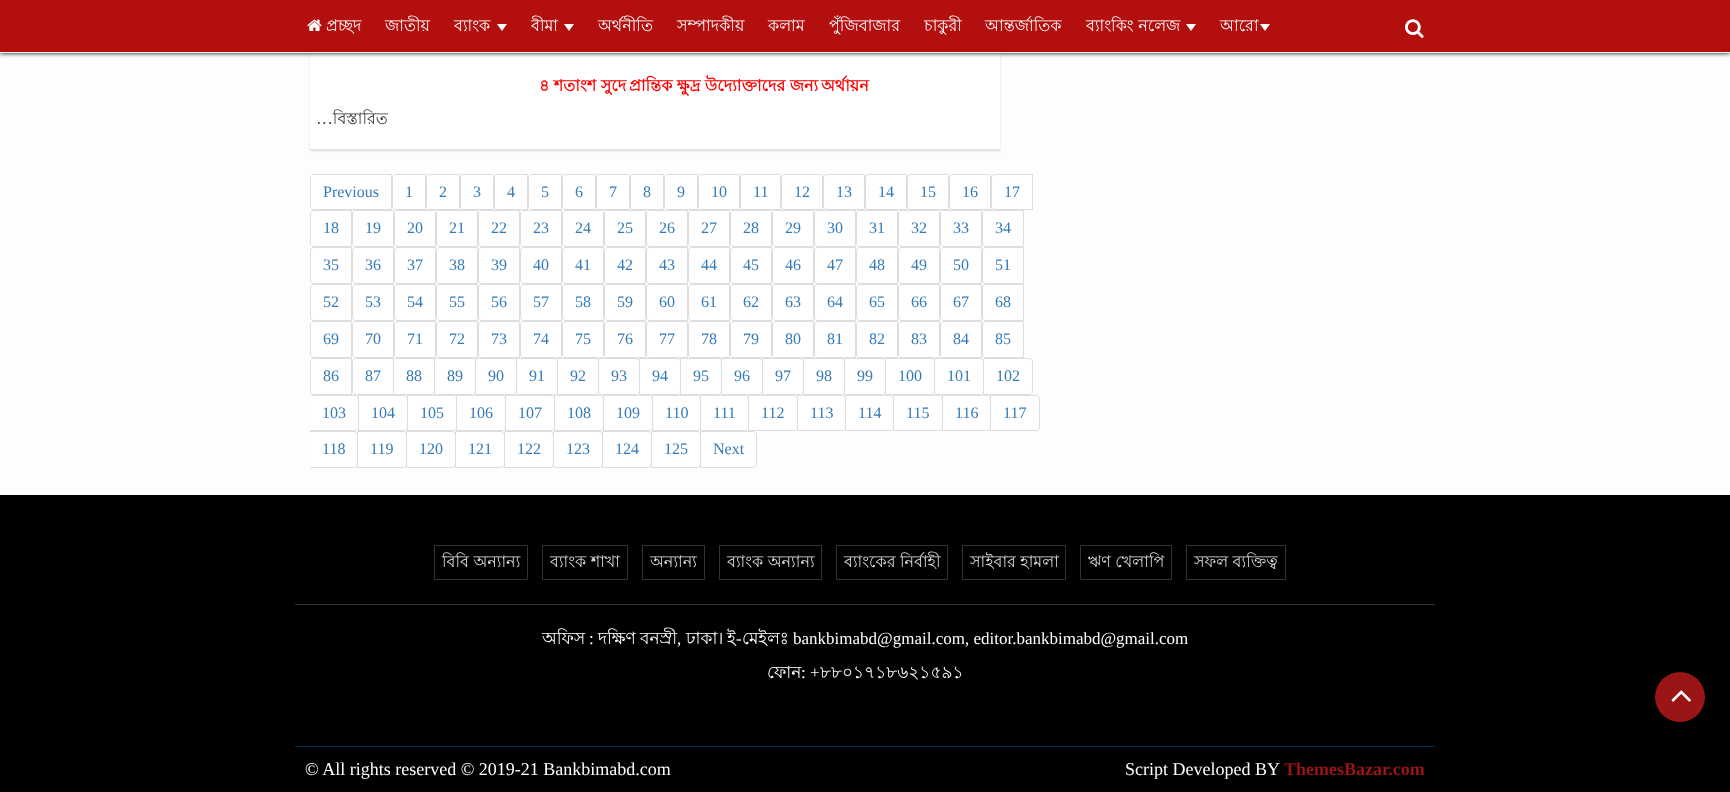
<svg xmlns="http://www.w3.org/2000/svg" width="1730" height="792">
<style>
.a{font:16px Lohit Bengali;fill:#fff}
.b{font:bold 16px Lohit Bengali;fill:#f00}
.c{font:16px Lohit Bengali;fill:#333}
.d{font:16px Liberation Serif;fill:#337ab7}
.e{font:16px Lohit Bengali;fill:#ddd}
.f{font:17px Lohit Bengali;fill:#fff}
.g{font:17px Liberation Serif;fill:#fff}
.h{font:18px Liberation Serif;fill:#fff}
.i{font:bold 18px Liberation Serif;fill:#9a1515}
</style>
<defs>
<clipPath id="clip1"><path d="M310 154h750v341H310z"/></clipPath>
</defs>
<rect width="100%" height="100%" fill="#fcfdfd"/>
<path fill="#ddd" filter="blur(1px)" d="M310 7h690v144H310z"/>
<path fill="#fff" d="M310 53h690v96H310z"/>
<path fill="#000" filter="blur(2.5px)" d="M0 0h1730v53H0z"/>
<path fill="#b30f0f" d="M0 0h1730v52H0z"/>
<path fill="#eee" d="M0 52h1730v1H0z"/>
<image href="1.png" x="307" y="19" width="15" height="12"/>
<path fill="#fff" d="M497 24h10l-5 7z"/>
<path fill="#fff" d="M564 24h10l-5 7z"/>
<path fill="#fff" d="M1186 24h10l-5 7z"/>
<path fill="#fff" d="M1260 24h10l-5 7z"/>
<image href="2.png" x="1405" y="19" width="19" height="19"/>
<path fill="#fff" stroke="#ddd" d="M314 174.5h77.5v35h-77.5c-2 0-3.5-1.5-3.5-3.5v-28c0-2 1.5-3.5 3.5-3.5z"/>
<path fill="#fff" stroke="#ddd" d="M396 174.5h29.5v35h-29.5c-2 0-3.5-1.5-3.5-3.5v-28c0-2 1.5-3.5 3.5-3.5z"/>
<path fill="#fff" stroke="#ddd" d="M430 174.5h29.5v35h-29.5c-2 0-3.5-1.5-3.5-3.5v-28c0-2 1.5-3.5 3.5-3.5z"/>
<path fill="#fff" stroke="#ddd" d="M464 174.5h29.5v35h-29.5c-2 0-3.5-1.5-3.5-3.5v-28c0-2 1.5-3.5 3.5-3.5z"/>
<path fill="#fff" stroke="#ddd" d="M498 174.5h29.5v35h-29.5c-2 0-3.5-1.5-3.5-3.5v-28c0-2 1.5-3.5 3.5-3.5z"/>
<path fill="#fff" stroke="#ddd" d="M532 174.5h29.5v35h-29.5c-2 0-3.5-1.5-3.5-3.5v-28c0-2 1.5-3.5 3.5-3.5z"/>
<path fill="#fff" stroke="#ddd" d="M566 174.5h29.5v35h-29.5c-2 0-3.5-1.5-3.5-3.5v-28c0-2 1.5-3.5 3.5-3.5z"/>
<path fill="#fff" stroke="#ddd" d="M600 174.5h29.5v35h-29.5c-2 0-3.5-1.5-3.5-3.5v-28c0-2 1.5-3.5 3.5-3.5z"/>
<path fill="#fff" stroke="#ddd" d="M634 174.5h29.5v35h-29.5c-2 0-3.5-1.5-3.5-3.5v-28c0-2 1.5-3.5 3.5-3.5z"/>
<path fill="#fff" stroke="#ddd" d="M668 174.5h29.5v35h-29.5c-2 0-3.5-1.5-3.5-3.5v-28c0-2 1.5-3.5 3.5-3.5z"/>
<path fill="#fff" stroke="#ddd" d="M702 174.5h37.5v35h-37.5c-2 0-3.5-1.5-3.5-3.5v-28c0-2 1.5-3.5 3.5-3.5z"/>
<path fill="#fff" stroke="#ddd" d="M744 174.5h36.5v35h-36.5c-2 0-3.5-1.5-3.5-3.5v-28c0-2 1.5-3.5 3.5-3.5z"/>
<path fill="#fff" stroke="#ddd" d="M785 174.5h37.5v35h-37.5c-2 0-3.5-1.5-3.5-3.5v-28c0-2 1.5-3.5 3.5-3.5z"/>
<path fill="#fff" stroke="#ddd" d="M827 174.5h37.5v35h-37.5c-2 0-3.5-1.5-3.5-3.5v-28c0-2 1.5-3.5 3.5-3.5z"/>
<path fill="#fff" stroke="#ddd" d="M869 174.5h37.5v35h-37.5c-2 0-3.5-1.5-3.5-3.5v-28c0-2 1.5-3.5 3.5-3.5z"/>
<path fill="#fff" stroke="#ddd" d="M911 174.5h37.5v35h-37.5c-2 0-3.5-1.5-3.5-3.5v-28c0-2 1.5-3.5 3.5-3.5z"/>
<path fill="#fff" stroke="#ddd" d="M953 174.5h37.5v35h-37.5c-2 0-3.5-1.5-3.5-3.5v-28c0-2 1.5-3.5 3.5-3.5z"/>
<path fill="#fff" stroke="#ddd" d="M995 174.5h37.5v35h-37.5c-2 0-3.5-1.5-3.5-3.5v-28c0-2 1.5-3.5 3.5-3.5z"/>
<path fill="#fff" stroke="#ddd" d="M314 210.5h37.5v36h-37.5c-2 0-3.5-1.5-3.5-3.5v-29c0-2 1.5-3.5 3.5-3.5z"/>
<path fill="#fff" stroke="#ddd" d="M356 210.5h37.5v36h-37.5c-2 0-3.5-1.5-3.5-3.5v-29c0-2 1.5-3.5 3.5-3.5z"/>
<path fill="#fff" stroke="#ddd" d="M398 210.5h37.5v36h-37.5c-2 0-3.5-1.5-3.5-3.5v-29c0-2 1.5-3.5 3.5-3.5z"/>
<path fill="#fff" stroke="#ddd" d="M440 210.5h37.5v36h-37.5c-2 0-3.5-1.5-3.5-3.5v-29c0-2 1.5-3.5 3.5-3.5z"/>
<path fill="#fff" stroke="#ddd" d="M482 210.5h37.5v36h-37.5c-2 0-3.5-1.5-3.5-3.5v-29c0-2 1.5-3.5 3.5-3.5z"/>
<path fill="#fff" stroke="#ddd" d="M524 210.5h37.5v36h-37.5c-2 0-3.5-1.5-3.5-3.5v-29c0-2 1.5-3.5 3.5-3.5z"/>
<path fill="#fff" stroke="#ddd" d="M566 210.5h37.5v36h-37.5c-2 0-3.5-1.5-3.5-3.5v-29c0-2 1.5-3.5 3.5-3.5z"/>
<path fill="#fff" stroke="#ddd" d="M608 210.5h37.5v36h-37.5c-2 0-3.5-1.5-3.5-3.5v-29c0-2 1.5-3.5 3.5-3.5z"/>
<path fill="#fff" stroke="#ddd" d="M650 210.5h37.5v36h-37.5c-2 0-3.5-1.5-3.5-3.5v-29c0-2 1.5-3.5 3.5-3.5z"/>
<path fill="#fff" stroke="#ddd" d="M692 210.5h37.5v36h-37.5c-2 0-3.5-1.5-3.5-3.5v-29c0-2 1.5-3.5 3.5-3.5z"/>
<path fill="#fff" stroke="#ddd" d="M734 210.5h37.5v36h-37.5c-2 0-3.5-1.5-3.5-3.5v-29c0-2 1.5-3.5 3.5-3.5z"/>
<path fill="#fff" stroke="#ddd" d="M776 210.5h37.5v36h-37.5c-2 0-3.5-1.5-3.5-3.5v-29c0-2 1.5-3.5 3.5-3.5z"/>
<path fill="#fff" stroke="#ddd" d="M818 210.5h37.5v36h-37.5c-2 0-3.5-1.5-3.5-3.5v-29c0-2 1.5-3.5 3.5-3.5z"/>
<path fill="#fff" stroke="#ddd" d="M860 210.5h37.5v36h-37.5c-2 0-3.5-1.5-3.5-3.5v-29c0-2 1.5-3.5 3.5-3.5z"/>
<path fill="#fff" stroke="#ddd" d="M902 210.5h37.5v36h-37.5c-2 0-3.5-1.5-3.5-3.5v-29c0-2 1.5-3.5 3.5-3.5z"/>
<path fill="#fff" stroke="#ddd" d="M944 210.5h37.5v36h-37.5c-2 0-3.5-1.5-3.5-3.5v-29c0-2 1.5-3.5 3.5-3.5z"/>
<path fill="#fff" stroke="#ddd" d="M986 210.5h37.5v36h-37.5c-2 0-3.5-1.5-3.5-3.5v-29c0-2 1.5-3.5 3.5-3.5z"/>
<path fill="#fff" stroke="#ddd" d="M314 247.5h37.5v36h-37.5c-2 0-3.5-1.5-3.5-3.5v-29c0-2 1.5-3.5 3.5-3.5z"/>
<path fill="#fff" stroke="#ddd" d="M356 247.5h37.5v36h-37.5c-2 0-3.5-1.5-3.5-3.5v-29c0-2 1.5-3.5 3.5-3.5z"/>
<path fill="#fff" stroke="#ddd" d="M398 247.5h37.5v36h-37.5c-2 0-3.5-1.5-3.5-3.5v-29c0-2 1.5-3.5 3.5-3.5z"/>
<path fill="#fff" stroke="#ddd" d="M440 247.5h37.5v36h-37.5c-2 0-3.5-1.5-3.5-3.5v-29c0-2 1.5-3.5 3.5-3.5z"/>
<path fill="#fff" stroke="#ddd" d="M482 247.5h37.5v36h-37.5c-2 0-3.5-1.5-3.5-3.5v-29c0-2 1.5-3.5 3.5-3.5z"/>
<path fill="#fff" stroke="#ddd" d="M524 247.5h37.5v36h-37.5c-2 0-3.5-1.5-3.5-3.5v-29c0-2 1.5-3.5 3.5-3.5z"/>
<path fill="#fff" stroke="#ddd" d="M566 247.5h37.5v36h-37.5c-2 0-3.5-1.5-3.5-3.5v-29c0-2 1.5-3.5 3.5-3.5z"/>
<path fill="#fff" stroke="#ddd" d="M608 247.5h37.5v36h-37.5c-2 0-3.5-1.5-3.5-3.5v-29c0-2 1.5-3.5 3.5-3.5z"/>
<path fill="#fff" stroke="#ddd" d="M650 247.5h37.5v36h-37.5c-2 0-3.5-1.5-3.5-3.5v-29c0-2 1.5-3.5 3.5-3.5z"/>
<path fill="#fff" stroke="#ddd" d="M692 247.5h37.5v36h-37.5c-2 0-3.5-1.5-3.5-3.5v-29c0-2 1.5-3.5 3.5-3.5z"/>
<path fill="#fff" stroke="#ddd" d="M734 247.5h37.5v36h-37.5c-2 0-3.5-1.5-3.5-3.5v-29c0-2 1.5-3.5 3.5-3.5z"/>
<path fill="#fff" stroke="#ddd" d="M776 247.5h37.5v36h-37.5c-2 0-3.5-1.5-3.5-3.5v-29c0-2 1.5-3.5 3.5-3.5z"/>
<path fill="#fff" stroke="#ddd" d="M818 247.5h37.5v36h-37.5c-2 0-3.5-1.5-3.5-3.5v-29c0-2 1.5-3.5 3.5-3.5z"/>
<path fill="#fff" stroke="#ddd" d="M860 247.5h37.5v36h-37.5c-2 0-3.5-1.5-3.5-3.5v-29c0-2 1.5-3.5 3.5-3.5z"/>
<path fill="#fff" stroke="#ddd" d="M902 247.5h37.5v36h-37.5c-2 0-3.5-1.5-3.5-3.5v-29c0-2 1.5-3.5 3.5-3.5z"/>
<path fill="#fff" stroke="#ddd" d="M944 247.5h37.5v36h-37.5c-2 0-3.5-1.5-3.5-3.5v-29c0-2 1.5-3.5 3.5-3.5z"/>
<path fill="#fff" stroke="#ddd" d="M986 247.5h37.5v36h-37.5c-2 0-3.5-1.5-3.5-3.5v-29c0-2 1.5-3.5 3.5-3.5z"/>
<path fill="#fff" stroke="#ddd" d="M314 284.5h37.5v36h-37.5c-2 0-3.5-1.5-3.5-3.5v-29c0-2 1.5-3.5 3.5-3.5z"/>
<path fill="#fff" stroke="#ddd" d="M356 284.5h37.5v36h-37.5c-2 0-3.5-1.5-3.5-3.5v-29c0-2 1.5-3.5 3.5-3.5z"/>
<path fill="#fff" stroke="#ddd" d="M398 284.5h37.5v36h-37.5c-2 0-3.5-1.5-3.5-3.5v-29c0-2 1.5-3.5 3.5-3.5z"/>
<path fill="#fff" stroke="#ddd" d="M440 284.5h37.5v36h-37.5c-2 0-3.5-1.5-3.5-3.5v-29c0-2 1.5-3.5 3.5-3.5z"/>
<path fill="#fff" stroke="#ddd" d="M482 284.5h37.5v36h-37.5c-2 0-3.5-1.5-3.5-3.5v-29c0-2 1.5-3.5 3.5-3.5z"/>
<path fill="#fff" stroke="#ddd" d="M524 284.5h37.5v36h-37.5c-2 0-3.5-1.5-3.5-3.5v-29c0-2 1.5-3.5 3.5-3.5z"/>
<path fill="#fff" stroke="#ddd" d="M566 284.5h37.5v36h-37.5c-2 0-3.5-1.5-3.5-3.5v-29c0-2 1.5-3.5 3.5-3.5z"/>
<path fill="#fff" stroke="#ddd" d="M608 284.5h37.5v36h-37.5c-2 0-3.5-1.5-3.5-3.5v-29c0-2 1.5-3.5 3.5-3.5z"/>
<path fill="#fff" stroke="#ddd" d="M650 284.5h37.5v36h-37.5c-2 0-3.5-1.5-3.5-3.5v-29c0-2 1.5-3.5 3.5-3.5z"/>
<path fill="#fff" stroke="#ddd" d="M692 284.5h37.5v36h-37.5c-2 0-3.5-1.5-3.5-3.5v-29c0-2 1.5-3.5 3.5-3.5z"/>
<path fill="#fff" stroke="#ddd" d="M734 284.5h37.5v36h-37.5c-2 0-3.5-1.5-3.5-3.5v-29c0-2 1.5-3.5 3.5-3.5z"/>
<path fill="#fff" stroke="#ddd" d="M776 284.5h37.5v36h-37.5c-2 0-3.5-1.5-3.5-3.5v-29c0-2 1.5-3.5 3.5-3.5z"/>
<path fill="#fff" stroke="#ddd" d="M818 284.5h37.5v36h-37.5c-2 0-3.5-1.5-3.5-3.5v-29c0-2 1.5-3.5 3.5-3.5z"/>
<path fill="#fff" stroke="#ddd" d="M860 284.5h37.5v36h-37.5c-2 0-3.5-1.5-3.5-3.5v-29c0-2 1.5-3.5 3.5-3.5z"/>
<path fill="#fff" stroke="#ddd" d="M902 284.5h37.5v36h-37.5c-2 0-3.5-1.5-3.5-3.5v-29c0-2 1.5-3.5 3.5-3.5z"/>
<path fill="#fff" stroke="#ddd" d="M944 284.5h37.5v36h-37.5c-2 0-3.5-1.5-3.5-3.5v-29c0-2 1.5-3.5 3.5-3.5z"/>
<path fill="#fff" stroke="#ddd" d="M986 284.5h37.5v36h-37.5c-2 0-3.5-1.5-3.5-3.5v-29c0-2 1.5-3.5 3.5-3.5z"/>
<path fill="#fff" stroke="#ddd" d="M314 321.5h37.5v36h-37.5c-2 0-3.5-1.5-3.5-3.5v-29c0-2 1.5-3.5 3.5-3.5z"/>
<path fill="#fff" stroke="#ddd" d="M356 321.5h37.5v36h-37.5c-2 0-3.5-1.5-3.5-3.5v-29c0-2 1.5-3.5 3.5-3.5z"/>
<path fill="#fff" stroke="#ddd" d="M398 321.5h37.5v36h-37.5c-2 0-3.5-1.5-3.5-3.5v-29c0-2 1.5-3.5 3.5-3.5z"/>
<path fill="#fff" stroke="#ddd" d="M440 321.5h37.5v36h-37.5c-2 0-3.5-1.5-3.5-3.5v-29c0-2 1.5-3.5 3.5-3.5z"/>
<path fill="#fff" stroke="#ddd" d="M482 321.5h37.5v36h-37.5c-2 0-3.5-1.5-3.5-3.5v-29c0-2 1.5-3.5 3.5-3.5z"/>
<path fill="#fff" stroke="#ddd" d="M524 321.5h37.5v36h-37.5c-2 0-3.5-1.5-3.5-3.5v-29c0-2 1.5-3.5 3.5-3.5z"/>
<path fill="#fff" stroke="#ddd" d="M566 321.5h37.5v36h-37.5c-2 0-3.5-1.5-3.5-3.5v-29c0-2 1.5-3.5 3.5-3.5z"/>
<path fill="#fff" stroke="#ddd" d="M608 321.5h37.5v36h-37.5c-2 0-3.5-1.5-3.5-3.5v-29c0-2 1.5-3.5 3.5-3.5z"/>
<path fill="#fff" stroke="#ddd" d="M650 321.5h37.5v36h-37.5c-2 0-3.5-1.5-3.5-3.5v-29c0-2 1.5-3.5 3.5-3.5z"/>
<path fill="#fff" stroke="#ddd" d="M692 321.5h37.5v36h-37.5c-2 0-3.5-1.5-3.5-3.5v-29c0-2 1.5-3.5 3.5-3.5z"/>
<path fill="#fff" stroke="#ddd" d="M734 321.5h37.5v36h-37.5c-2 0-3.5-1.5-3.5-3.5v-29c0-2 1.5-3.5 3.5-3.5z"/>
<path fill="#fff" stroke="#ddd" d="M776 321.5h37.5v36h-37.5c-2 0-3.5-1.5-3.5-3.5v-29c0-2 1.5-3.5 3.5-3.5z"/>
<path fill="#fff" stroke="#ddd" d="M818 321.5h37.5v36h-37.5c-2 0-3.5-1.5-3.5-3.5v-29c0-2 1.5-3.5 3.5-3.5z"/>
<path fill="#fff" stroke="#ddd" d="M860 321.5h37.5v36h-37.5c-2 0-3.5-1.5-3.5-3.5v-29c0-2 1.5-3.5 3.5-3.5z"/>
<path fill="#fff" stroke="#ddd" d="M902 321.5h37.5v36h-37.5c-2 0-3.5-1.5-3.5-3.5v-29c0-2 1.5-3.5 3.5-3.5z"/>
<path fill="#fff" stroke="#ddd" d="M944 321.5h37.5v36h-37.5c-2 0-3.5-1.5-3.5-3.5v-29c0-2 1.5-3.5 3.5-3.5z"/>
<path fill="#fff" stroke="#ddd" d="M986 321.5h37.5v36h-37.5c-2 0-3.5-1.5-3.5-3.5v-29c0-2 1.5-3.5 3.5-3.5z"/>
<path fill="#fff" stroke="#ddd" d="M314 358.5h37.5v36h-37.5c-2 0-3.5-1.5-3.5-3.5v-29c0-2 1.5-3.5 3.5-3.5z"/>
<path fill="#fff" stroke="#ddd" d="M356 358.5h37.5v36h-37.5c-2 0-3.5-1.5-3.5-3.5v-29c0-2 1.5-3.5 3.5-3.5z"/>
<path fill="#fff" stroke="#ddd" d="M393.5 358.5h37.5c2 0 3.5 1.5 3.5 3.5v29c0 2-1.5 3.5-3.5 3.5h-37.5z"/>
<path fill="#fff" stroke="#ddd" d="M434.5 358.5h37.5c2 0 3.5 1.5 3.5 3.5v29c0 2-1.5 3.5-3.5 3.5h-37.5z"/>
<path fill="#fff" stroke="#ddd" d="M475.5 358.5h37.5c2 0 3.5 1.5 3.5 3.5v29c0 2-1.5 3.5-3.5 3.5h-37.5z"/>
<path fill="#fff" stroke="#ddd" d="M516.5 358.5h37.5c2 0 3.5 1.5 3.5 3.5v29c0 2-1.5 3.5-3.5 3.5h-37.5z"/>
<path fill="#fff" stroke="#ddd" d="M557.5 358.5h37.5c2 0 3.5 1.5 3.5 3.5v29c0 2-1.5 3.5-3.5 3.5h-37.5z"/>
<path fill="#fff" stroke="#ddd" d="M598.5 358.5h37.5c2 0 3.5 1.5 3.5 3.5v29c0 2-1.5 3.5-3.5 3.5h-37.5z"/>
<path fill="#fff" stroke="#ddd" d="M639.5 358.5h37.5c2 0 3.5 1.5 3.5 3.5v29c0 2-1.5 3.5-3.5 3.5h-37.5z"/>
<path fill="#fff" stroke="#ddd" d="M680.5 358.5h37.5c2 0 3.5 1.5 3.5 3.5v29c0 2-1.5 3.5-3.5 3.5h-37.5z"/>
<path fill="#fff" stroke="#ddd" d="M721.5 358.5h37.5c2 0 3.5 1.5 3.5 3.5v29c0 2-1.5 3.5-3.5 3.5h-37.5z"/>
<path fill="#fff" stroke="#ddd" d="M762.5 358.5h37.5c2 0 3.5 1.5 3.5 3.5v29c0 2-1.5 3.5-3.5 3.5h-37.5z"/>
<path fill="#fff" stroke="#ddd" d="M803.5 358.5h37.5c2 0 3.5 1.5 3.5 3.5v29c0 2-1.5 3.5-3.5 3.5h-37.5z"/>
<path fill="#fff" stroke="#ddd" d="M844.5 358.5h37.5c2 0 3.5 1.5 3.5 3.5v29c0 2-1.5 3.5-3.5 3.5h-37.5z"/>
<path fill="#fff" stroke="#ddd" d="M885.5 358.5h45.5c2 0 3.5 1.5 3.5 3.5v29c0 2-1.5 3.5-3.5 3.5h-45.5z"/>
<path fill="#fff" stroke="#ddd" d="M934.5 358.5h45.5c2 0 3.5 1.5 3.5 3.5v29c0 2-1.5 3.5-3.5 3.5h-45.5z"/>
<path fill="#fff" stroke="#ddd" d="M983.5 358.5h45.5c2 0 3.5 1.5 3.5 3.5v29c0 2-1.5 3.5-3.5 3.5h-45.5z"/>
<path fill="#fff" d="M310 395h45c2 0 4 2 4 4v28c0 2-2 4-4 4h-45z"/>
<g clip-path="url(#clip1)">
<path fill="none" stroke="#ddd" d="M309.5 395.5h45.5c2 0 3.5 1.5 3.5 3.5v28c0 2-1.5 3.5-3.5 3.5h-45.5z"/>
</g>
<path fill="#fff" stroke="#ddd" d="M358.5 395.5h45.5c2 0 3.5 1.5 3.5 3.5v28c0 2-1.5 3.5-3.5 3.5h-45.5z"/>
<path fill="#fff" stroke="#ddd" d="M407.5 395.5h45.5c2 0 3.5 1.5 3.5 3.5v28c0 2-1.5 3.5-3.5 3.5h-45.5z"/>
<path fill="#fff" stroke="#ddd" d="M456.5 395.5h45.5c2 0 3.5 1.5 3.5 3.5v28c0 2-1.5 3.5-3.5 3.5h-45.5z"/>
<path fill="#fff" stroke="#ddd" d="M505.5 395.5h45.5c2 0 3.5 1.5 3.5 3.5v28c0 2-1.5 3.5-3.5 3.5h-45.5z"/>
<path fill="#fff" stroke="#ddd" d="M554.5 395.5h45.5c2 0 3.5 1.5 3.5 3.5v28c0 2-1.5 3.5-3.5 3.5h-45.5z"/>
<path fill="#fff" stroke="#ddd" d="M603.5 395.5h45.5c2 0 3.5 1.5 3.5 3.5v28c0 2-1.5 3.5-3.5 3.5h-45.5z"/>
<path fill="#fff" stroke="#ddd" d="M652.5 395.5h44.5c2 0 3.5 1.5 3.5 3.5v28c0 2-1.5 3.5-3.5 3.5h-44.5z"/>
<path fill="#fff" stroke="#ddd" d="M700.5 395.5h44.5c2 0 3.5 1.5 3.5 3.5v28c0 2-1.5 3.5-3.5 3.5h-44.5z"/>
<path fill="#fff" stroke="#ddd" d="M748.5 395.5h45.5c2 0 3.5 1.5 3.5 3.5v28c0 2-1.5 3.5-3.5 3.5h-45.5z"/>
<path fill="#fff" stroke="#ddd" d="M797.5 395.5h44.5c2 0 3.5 1.5 3.5 3.5v28c0 2-1.5 3.5-3.5 3.5h-44.5z"/>
<path fill="#fff" stroke="#ddd" d="M845.5 395.5h44.5c2 0 3.5 1.5 3.5 3.5v28c0 2-1.5 3.5-3.5 3.5h-44.5z"/>
<path fill="#fff" stroke="#ddd" d="M893.5 395.5h45.5c2 0 3.5 1.5 3.5 3.5v28c0 2-1.5 3.5-3.5 3.5h-45.5z"/>
<path fill="#fff" stroke="#ddd" d="M942.5 395.5h44.5c2 0 3.5 1.5 3.5 3.5v28c0 2-1.5 3.5-3.5 3.5h-44.5z"/>
<path fill="#fff" stroke="#ddd" d="M990.5 395.5h45.5c2 0 3.5 1.5 3.5 3.5v28c0 2-1.5 3.5-3.5 3.5h-45.5z"/>
<path fill="#fff" d="M310 431h44c2 0 4 2 4 4v29c0 2-2 4-4 4h-44z"/>
<g clip-path="url(#clip1)">
<path fill="none" stroke="#ddd" d="M309.5 431.5h44.5c2 0 3.5 1.5 3.5 3.5v29c0 2-1.5 3.5-3.5 3.5h-44.5z"/>
</g>
<path fill="#fff" stroke="#ddd" d="M357.5 431.5h45.5c2 0 3.5 1.5 3.5 3.5v29c0 2-1.5 3.5-3.5 3.5h-45.5z"/>
<path fill="#fff" stroke="#ddd" d="M406.5 431.5h45.5c2 0 3.5 1.5 3.5 3.5v29c0 2-1.5 3.5-3.5 3.5h-45.5z"/>
<path fill="#fff" stroke="#ddd" d="M455.5 431.5h45.5c2 0 3.5 1.5 3.5 3.5v29c0 2-1.5 3.5-3.5 3.5h-45.5z"/>
<path fill="#fff" stroke="#ddd" d="M504.5 431.5h45.5c2 0 3.5 1.5 3.5 3.5v29c0 2-1.5 3.5-3.5 3.5h-45.5z"/>
<path fill="#fff" stroke="#ddd" d="M553.5 431.5h45.5c2 0 3.5 1.5 3.5 3.5v29c0 2-1.5 3.5-3.5 3.5h-45.5z"/>
<path fill="#fff" stroke="#ddd" d="M602.5 431.5h45.5c2 0 3.5 1.5 3.5 3.5v29c0 2-1.5 3.5-3.5 3.5h-45.5z"/>
<path fill="#fff" stroke="#ddd" d="M651.5 431.5h45.5c2 0 3.5 1.5 3.5 3.5v29c0 2-1.5 3.5-3.5 3.5h-45.5z"/>
<path fill="#fff" stroke="#ddd" d="M700.5 431.5h52.5c2 0 3.5 1.5 3.5 3.5v29c0 2-1.5 3.5-3.5 3.5h-52.5z"/>
<path fill="#000" d="M0 495h1730v297H0z"/>
<path fill="#333" d="M295 604h1140v1H295z"/>
<path fill="none" stroke="#333" d="M434.5 545.5h93v34H434.5z"/>
<path fill="none" stroke="#333" d="M542.5 545.5h85v34H542.5z"/>
<path fill="none" stroke="#333" d="M642.5 545.5h62v34H642.5z"/>
<path fill="none" stroke="#333" d="M719.5 545.5h102v34H719.5z"/>
<path fill="none" stroke="#333" d="M836.5 545.5h111v34H836.5z"/>
<path fill="none" stroke="#333" d="M962.5 545.5h103v34H962.5z"/>
<path fill="none" stroke="#333" d="M1080.5 545.5h91v34H1080.5z"/>
<path fill="none" stroke="#333" d="M1186.5 545.5h99v34H1186.5z"/>
<circle fill="#9a1515" cx="1680" cy="697" r="25"/>
<image href="3.png" x="1671" y="690" width="20" height="12"/>
<path fill="#002c56" d="M295 746h1140v1H295z"/>
<text class="a" x="326" y="31">প্রচ্ছদ</text>
<text class="a" x="385" y="31">জাতীয়</text>
<text class="a" x="454" y="31">ব্যাংক</text>
<text class="a" x="531" y="31">বীমা</text>
<text class="a" x="598" y="31">অর্থনীতি</text>
<text class="a" x="677" y="31">সম্পাদকীয়</text>
<text class="a" x="768" y="31">কলাম</text>
<text class="a" x="829" y="31">পুঁজিবাজার</text>
<text class="a" x="924" y="31">চাকুরী</text>
<text class="a" x="985" y="31">আন্তর্জাতিক</text>
<text class="a" x="1086" y="31">ব্যাংকিং নলেজ</text>
<text class="a" x="1220" y="31">আরো</text>
<text class="b" x="539" y="91">৪ শতাংশ সুদে</text>
<text class="b" x="629" y="91">প্রান্তিক ক্ষুদ্র উদ্যোক্তাদের জন্য</text>
<text class="b" x="821" y="91">অর্থায়ন</text>
<text class="c" x="316" y="124">...বিস্তারিত</text>
<text class="d" x="323" y="197">Previous</text>
<text class="d" x="405" y="197">1</text>
<text class="d" x="439" y="197">2</text>
<text class="d" x="473" y="197">3</text>
<text class="d" x="507" y="197">4</text>
<text class="d" x="541" y="197">5</text>
<text class="d" x="575" y="197">6</text>
<text class="d" x="609" y="197">7</text>
<text class="d" x="643" y="197">8</text>
<text class="d" x="677" y="197">9</text>
<text class="d" x="711" y="197">10</text>
<text class="d" x="753" y="197">11</text>
<text class="d" x="794" y="197">12</text>
<text class="d" x="836" y="197">13</text>
<text class="d" x="878" y="197">14</text>
<text class="d" x="920" y="197">15</text>
<text class="d" x="962" y="197">16</text>
<text class="d" x="1004" y="197">17</text>
<text class="d" x="323" y="233">18</text>
<text class="d" x="365" y="233">19</text>
<text class="d" x="407" y="233">20</text>
<text class="d" x="449" y="233">21</text>
<text class="d" x="491" y="233">22</text>
<text class="d" x="533" y="233">23</text>
<text class="d" x="575" y="233">24</text>
<text class="d" x="617" y="233">25</text>
<text class="d" x="659" y="233">26</text>
<text class="d" x="701" y="233">27</text>
<text class="d" x="743" y="233">28</text>
<text class="d" x="785" y="233">29</text>
<text class="d" x="827" y="233">30</text>
<text class="d" x="869" y="233">31</text>
<text class="d" x="911" y="233">32</text>
<text class="d" x="953" y="233">33</text>
<text class="d" x="995" y="233">34</text>
<text class="d" x="323" y="270">35</text>
<text class="d" x="365" y="270">36</text>
<text class="d" x="407" y="270">37</text>
<text class="d" x="449" y="270">38</text>
<text class="d" x="491" y="270">39</text>
<text class="d" x="533" y="270">40</text>
<text class="d" x="575" y="270">41</text>
<text class="d" x="617" y="270">42</text>
<text class="d" x="659" y="270">43</text>
<text class="d" x="701" y="270">44</text>
<text class="d" x="743" y="270">45</text>
<text class="d" x="785" y="270">46</text>
<text class="d" x="827" y="270">47</text>
<text class="d" x="869" y="270">48</text>
<text class="d" x="911" y="270">49</text>
<text class="d" x="953" y="270">50</text>
<text class="d" x="995" y="270">51</text>
<text class="d" x="323" y="307">52</text>
<text class="d" x="365" y="307">53</text>
<text class="d" x="407" y="307">54</text>
<text class="d" x="449" y="307">55</text>
<text class="d" x="491" y="307">56</text>
<text class="d" x="533" y="307">57</text>
<text class="d" x="575" y="307">58</text>
<text class="d" x="617" y="307">59</text>
<text class="d" x="659" y="307">60</text>
<text class="d" x="701" y="307">61</text>
<text class="d" x="743" y="307">62</text>
<text class="d" x="785" y="307">63</text>
<text class="d" x="827" y="307">64</text>
<text class="d" x="869" y="307">65</text>
<text class="d" x="911" y="307">66</text>
<text class="d" x="953" y="307">67</text>
<text class="d" x="995" y="307">68</text>
<text class="d" x="323" y="344">69</text>
<text class="d" x="365" y="344">70</text>
<text class="d" x="407" y="344">71</text>
<text class="d" x="449" y="344">72</text>
<text class="d" x="491" y="344">73</text>
<text class="d" x="533" y="344">74</text>
<text class="d" x="575" y="344">75</text>
<text class="d" x="617" y="344">76</text>
<text class="d" x="659" y="344">77</text>
<text class="d" x="701" y="344">78</text>
<text class="d" x="743" y="344">79</text>
<text class="d" x="785" y="344">80</text>
<text class="d" x="827" y="344">81</text>
<text class="d" x="869" y="344">82</text>
<text class="d" x="911" y="344">83</text>
<text class="d" x="953" y="344">84</text>
<text class="d" x="995" y="344">85</text>
<text class="d" x="323" y="381">86</text>
<text class="d" x="365" y="381">87</text>
<text class="d" x="406" y="381">88</text>
<text class="d" x="447" y="381">89</text>
<text class="d" x="488" y="381">90</text>
<text class="d" x="529" y="381">91</text>
<text class="d" x="570" y="381">92</text>
<text class="d" x="611" y="381">93</text>
<text class="d" x="652" y="381">94</text>
<text class="d" x="693" y="381">95</text>
<text class="d" x="734" y="381">96</text>
<text class="d" x="775" y="381">97</text>
<text class="d" x="816" y="381">98</text>
<text class="d" x="857" y="381">99</text>
<text class="d" x="898" y="381">100</text>
<text class="d" x="947" y="381">101</text>
<text class="d" x="996" y="381">102</text>
<text class="d" x="322" y="418">103</text>
<text class="d" x="371" y="418">104</text>
<text class="d" x="420" y="418">105</text>
<text class="d" x="469" y="418">106</text>
<text class="d" x="518" y="418">107</text>
<text class="d" x="567" y="418">108</text>
<text class="d" x="616" y="418">109</text>
<text class="d" x="665" y="418">110</text>
<text class="d" x="713" y="418">111</text>
<text class="d" x="761" y="418">112</text>
<text class="d" x="810" y="418">113</text>
<text class="d" x="858" y="418">114</text>
<text class="d" x="906" y="418">115</text>
<text class="d" x="955" y="418">116</text>
<text class="d" x="1003" y="418">117</text>
<text class="d" x="322" y="454">118</text>
<text class="d" x="370" y="454">119</text>
<text class="d" x="419" y="454">120</text>
<text class="d" x="468" y="454">121</text>
<text class="d" x="517" y="454">122</text>
<text class="d" x="566" y="454">123</text>
<text class="d" x="615" y="454">124</text>
<text class="d" x="664" y="454">125</text>
<text class="d" x="713" y="454">Next</text>
<text class="e" x="442" y="567">বিবি অন্যান্য</text>
<text class="e" x="550" y="567">ব্যাংক শাখা</text>
<text class="e" x="650" y="567">অন্যান্য</text>
<text class="e" x="727" y="567">ব্যাংক অন্যান্য</text>
<text class="e" x="844" y="567">ব্যাংকের নির্বাহী</text>
<text class="e" x="970" y="567">সাইবার হামলা</text>
<text class="e" x="1088" y="567">ঋণ খেলাপি</text>
<text class="e" x="1194" y="567">সফল ব্যক্তিত্ব</text>
<text class="f" x="542" y="644">অফিস</text>
<text class="g" x="589" y="644">:</text>
<text class="f" x="598" y="644">দক্ষিণ</text>
<text class="f" x="640" y="644">বনস্রী</text>
<text class="f" x="686" y="644">ঢাকা।</text>
<text class="f" x="727" y="644">ই</text>
<text class="g" x="736" y="644">-</text>
<text class="f" x="742" y="644">মেইলঃ</text>
<text class="g" x="793" y="644">bankbimabd@gmail.com, editor.bankbimabd@gmail.com</text>
<text class="g" x="677" y="644">,</text>
<text class="f" x="767" y="678">ফোন</text>
<text class="g" x="801" y="678">: +</text>
<text class="f" x="820" y="678">৮৮০১৭১৮৬২১৫৯১</text>
<text class="h" x="305" y="775">© All rights reserved © 2019-21 Bankbimabd.com</text>
<text class="h" x="1125" y="775">Script Developed BY</text>
<text class="i" x="1284" y="775">ThemesBazar.com</text>
</svg>
